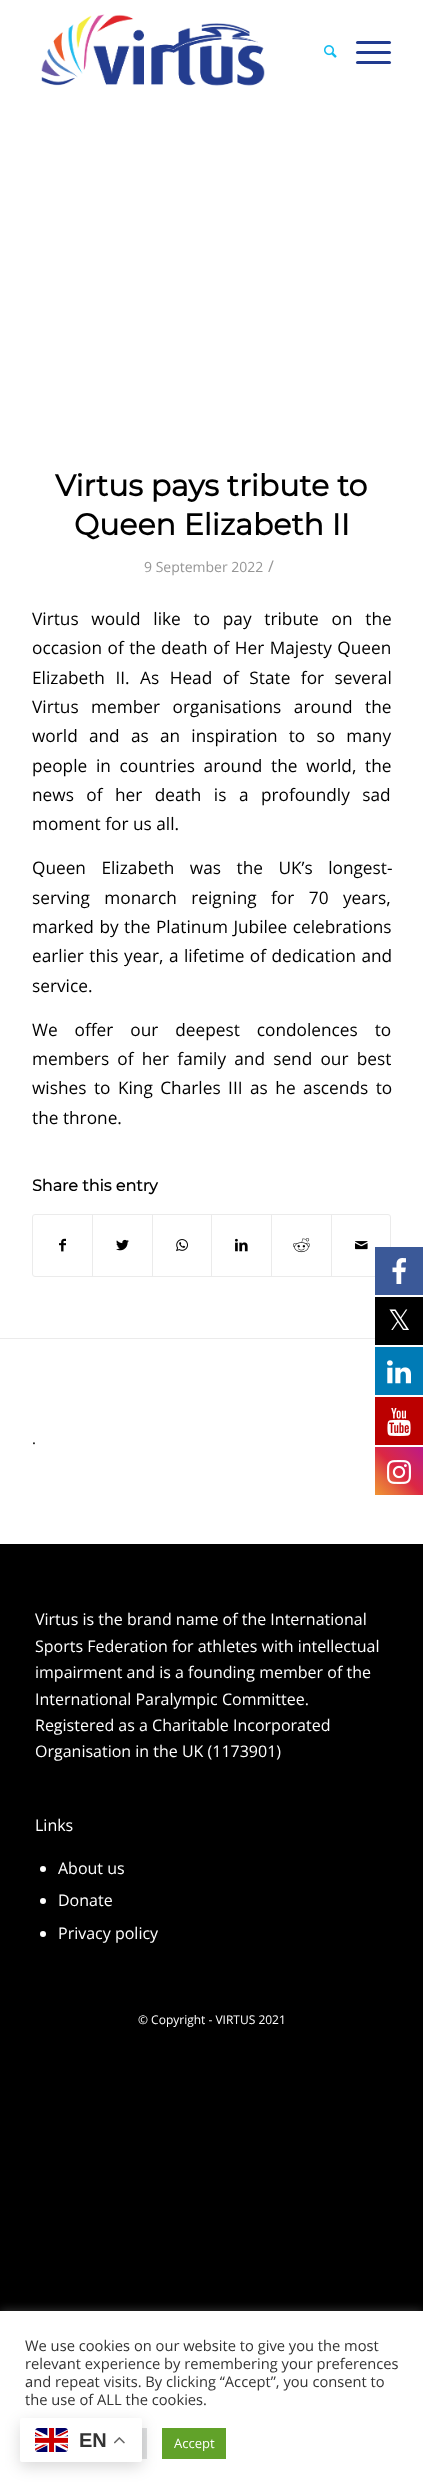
<svg xmlns="http://www.w3.org/2000/svg" width="423" height="2489">
<style>
.a{font:bold 30px Montserrat;fill:#000}
.b{font:14px Open Sans;fill:#969696}
.c{font:16px Open Sans;fill:#969696}
.d{font:17.25px Open Sans;fill:#000}
.e{font:bold 16px Montserrat;fill:#000}
.f{font:15px Open Sans;fill:#000}
.g{font:16px Open Sans;fill:#fff}
.h{font:12px Open Sans;fill:#fff}
.i{font:28px DejaVu Sans;fill:#fff}
.j{font:14.7px Open Sans;fill:#333}
.k{font:13px Open Sans;fill:#fff}
.l{font:bold 20px Liberation Sans;fill:#333}
</style>
<defs>
<linearGradient id="g1" gradientUnits="userSpaceOnUse" x1="375" y1="1495" x2="423" y2="1447"><stop offset="0" stop-color="#f09433"/><stop offset="0.25" stop-color="#e6683c"/><stop offset="0.5" stop-color="#dc2743"/><stop offset="0.75" stop-color="#cc2366"/><stop offset="1" stop-color="#bc1888"/></linearGradient>
</defs>
<rect width="100%" height="100%" fill="#000"/>
<path fill="#fff" d="M0 0h423v1544H0z"/>
<image href="1.png" x="41" y="14" width="224" height="72"/>
<image href="2.png" x="324" y="45" width="13" height="13"/>
<rect fill="#213b8f" x="356" y="51" width="35" height="3" rx="1.5"/>
<rect fill="#213b8f" x="356" y="41" width="35" height="3" rx="1.5"/>
<rect fill="#213b8f" x="356" y="61" width="35" height="3" rx="1.5"/>
<rect fill="none" stroke="#ebebeb" x="32.5" y="1214.5" width="358" height="62" rx="2.5"/>
<image href="3.png" x="59" y="1238" width="7" height="14"/>
<path fill="#ebebeb" d="M92 1215h1v61H92z"/>
<image href="4.png" x="116" y="1239" width="13" height="12"/>
<path fill="#ebebeb" d="M152 1215h1v61H152z"/>
<image href="5.png" x="176" y="1239" width="12" height="13"/>
<path fill="#ebebeb" d="M211 1215h1v61H211z"/>
<image href="6.png" x="235" y="1238" width="13" height="14"/>
<path fill="#ebebeb" d="M271 1215h1v61H271z"/>
<image href="7.png" x="293" y="1238" width="17" height="15"/>
<path fill="#ebebeb" d="M331 1215h1v61H331z"/>
<image href="8.png" x="355" y="1241" width="13" height="9"/>
<path fill="#ebebeb" d="M0 1338h375v1H0z"/>
<circle fill="#fff" cx="43" cy="1869" r="3"/>
<circle fill="#fff" cx="43" cy="1901" r="3"/>
<circle fill="#fff" cx="43" cy="1934" r="3"/>
<path fill="#3b5998" d="M375 1247h48v48H375z"/>
<image href="9.png" x="392" y="1258" width="14" height="26"/>
<path fill="#000" d="M375 1297h48v48H375z"/>
<path fill="#007bb6" d="M375 1347h48v48H375z"/>
<image href="10.png" x="387" y="1360" width="24" height="24"/>
<path fill="#b00" d="M375 1397h48v48H375z"/>
<image href="11.png" x="387" y="1408" width="24" height="28"/>
<path fill="url(#g1)" d="M375 1447h48v48H375z"/>
<image href="12.png" x="387" y="1460" width="24" height="24"/>
<path fill="#acabab4d" filter="blur(5px)" d="M0 2310h423v178H0z"/>
<path fill="#fff" d="M0 2311h423v178H0z"/>
<path fill="#dedfe0" d="M142 2428h5v31H142z"/>
<path fill="#61a229" d="M162 2428h64v31H162z"/>
<rect fill="#00000026" filter="blur(7.5px)" x="20" y="2423" width="122" height="44" rx="2"/>
<rect fill="#fff" x="20" y="2418" width="122" height="44" rx="2"/>
<image href="13.png" x="35" y="2428" width="33" height="24"/>
<image href="14.png" x="114" y="2437" width="11" height="7"/>
<text class="a" x="55" y="496">Virtus pays tribute to</text>
<text class="a" x="74" y="535">Queen Elizabeth II</text>
<text class="b" x="144" y="572">9 September 2022</text>
<text class="c" x="268" y="572">/</text>
<text class="d" x="32" y="625" word-spacing="8.25">Virtus would like to pay tribute on the</text>
<text class="d" x="32" y="654" word-spacing="1">occasion of the death of Her Majesty Queen</text>
<text class="d" x="32" y="684" word-spacing="6">Elizabeth II. As Head of State for several</text>
<text class="d" x="32" y="713" word-spacing="8">Virtus member organisations around the</text>
<text class="d" x="32" y="742" word-spacing="6.75">world and as an inspiration to so many</text>
<text class="d" x="32" y="772" word-spacing="4.25">people in countries around the world, the</text>
<text class="d" x="32" y="801" word-spacing="8">news of her death is a profoundly sad</text>
<text class="d" x="32" y="830">moment for us all.</text>
<text class="d" x="32" y="874" word-spacing="11">Queen Elizabeth was the UK’s longest-</text>
<text class="d" x="32" y="904" word-spacing="10">serving monarch reigning for 70 years,</text>
<text class="d" x="32" y="933" word-spacing="1">marked by the Platinum Jubilee celebrations</text>
<text class="d" x="32" y="962" word-spacing="1">earlier this year, a lifetime of dedication and</text>
<text class="d" x="32" y="992">service.</text>
<text class="d" x="32" y="1036" word-spacing="12.5">We offer our deepest condolences to</text>
<text class="d" x="32" y="1065" word-spacing="3.75">members of her family and send our best</text>
<text class="d" x="32" y="1094" word-spacing="3">wishes to King Charles III as he ascends to</text>
<text class="d" x="32" y="1124">the throne.</text>
<text class="e" x="32" y="1191">Share this entry</text>
<text class="f" x="32" y="1444">.</text>
<text class="g" x="35" y="1625">Virtus is the brand name of the International</text>
<text class="g" x="35" y="1652">Sports Federation for athletes with intellectual</text>
<text class="g" x="35" y="1678">impairment and is a founding member of the</text>
<text class="g" x="35" y="1705">International Paralympic Committee.</text>
<text class="g" x="35" y="1731">Registered as a Charitable Incorporated</text>
<text class="g" x="35" y="1757">Organisation in the UK (1173901)</text>
<text class="g" x="35" y="1831">Links</text>
<text class="g" x="58" y="1874">About us</text>
<text class="g" x="58" y="1906">Donate</text>
<text class="g" x="58" y="1939">Privacy policy</text>
<text class="h" x="138" y="2024">© Copyright - VIRTUS 2021</text>
<text class="i" x="388" y="1330">𝕏</text>
<text class="j" x="25" y="2351">We use cookies on our website to give you the most</text>
<text class="j" x="25" y="2369">relevant experience by remembering your preferences</text>
<text class="j" x="25" y="2387">and repeat visits. By clicking “Accept”, you consent to</text>
<text class="j" x="25" y="2405">the use of ALL the cookies.</text>
<text class="k" x="174" y="2448">Accept</text>
<text class="l" x="79" y="2447">EN</text>
</svg>
